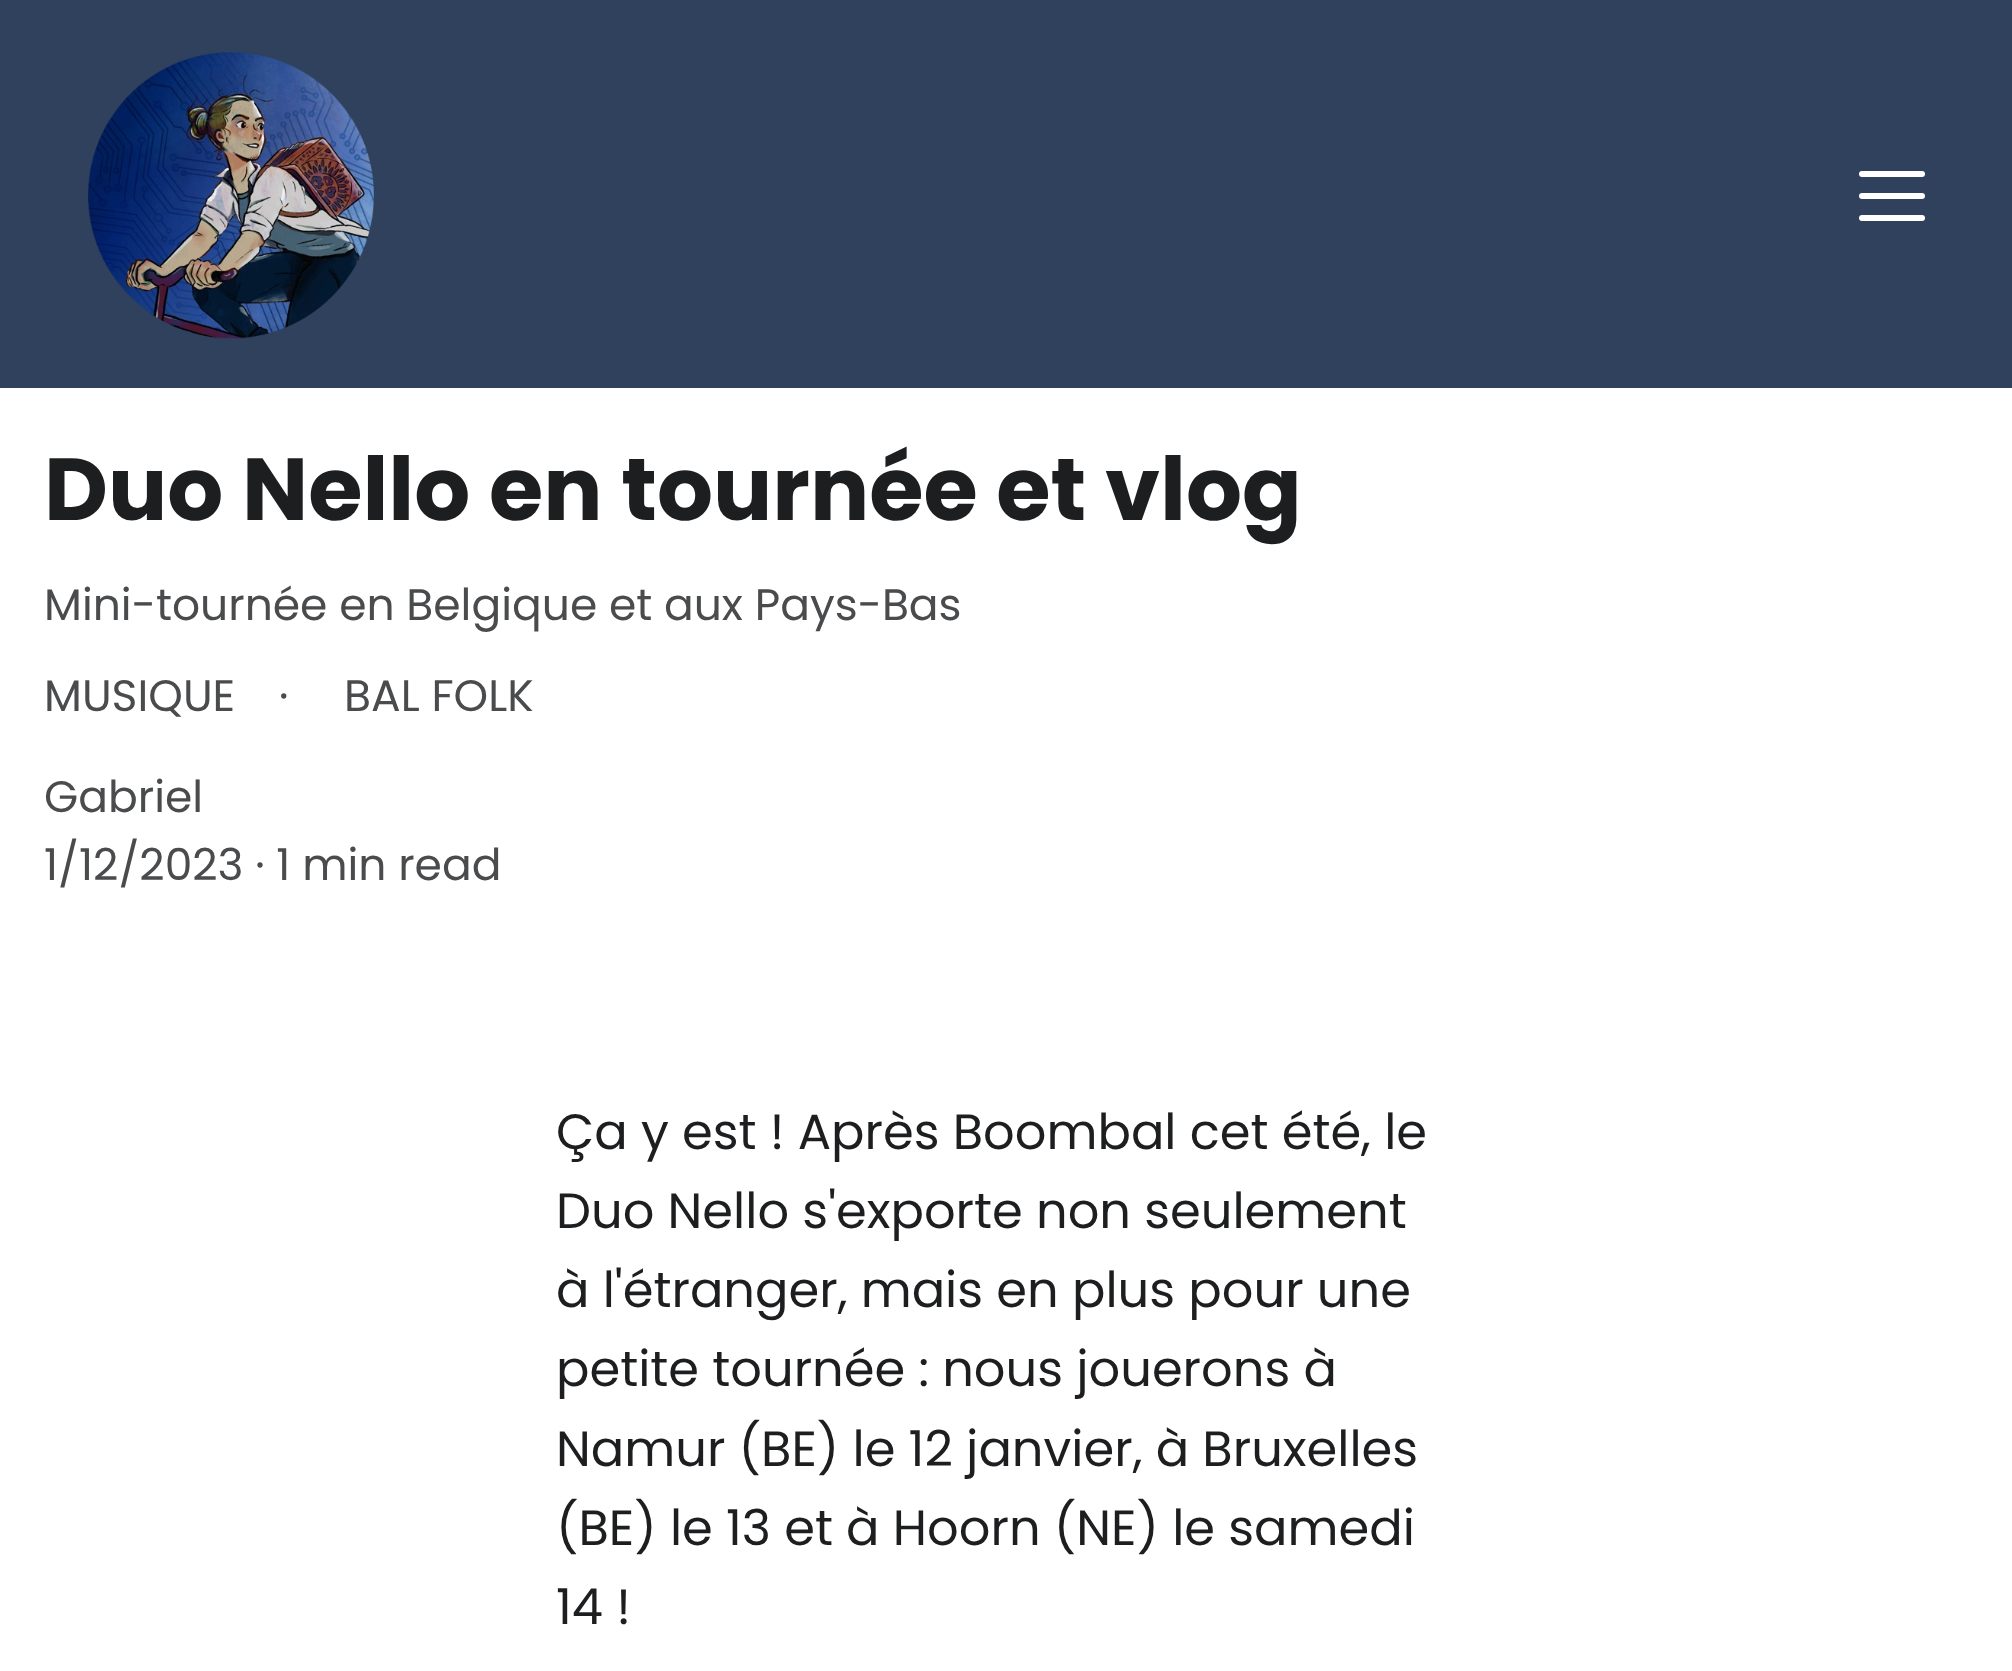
<svg xmlns="http://www.w3.org/2000/svg" width="2012" height="1671">
<style>
.a{font:bold 88px Poppins;fill:#1d1e20}
.b{font:44px Poppins;fill:#4a4b4d}
.c{font:49.5px Poppins;fill:#1d1e20}
</style>
<rect width="100%" height="100%" fill="#fff"/>
<path fill="#30415d" d="M0 0h2012v388H0z"/>
<image href="1.png" x="88" y="52" width="286" height="287"/>
<rect fill="#fff" x="1859" y="171" width="66" height="6" rx="3"/>
<rect fill="#fff" x="1859" y="193" width="66" height="6" rx="3"/>
<rect fill="#fff" x="1859" y="215" width="66" height="6" rx="3"/>
<text class="a" x="44" y="520">Duo Nello en tournée et vlog</text>
<text class="b" x="44" y="620">Mini-tournée en Belgique et aux Pays-Bas</text>
<text class="b" x="44" y="711">MUSIQUE</text>
<text class="b" x="279" y="711">·</text>
<text class="b" x="344" y="711">BAL FOLK</text>
<text class="b" x="44" y="812">Gabriel</text>
<text class="b" x="44" y="880">1/12/2023 · 1 min read</text>
<text class="c" x="556" y="1149">Ça y est ! Après Boombal cet été, le</text>
<text class="c" x="556" y="1228">Duo Nello s'exporte non seulement</text>
<text class="c" x="556" y="1307">à l'étranger, mais en plus pour une</text>
<text class="c" x="556" y="1386">petite tournée : nous jouerons à</text>
<text class="c" x="556" y="1466">Namur (BE) le 12 janvier, à Bruxelles</text>
<text class="c" x="556" y="1545">(BE) le 13 et à Hoorn (NE) le samedi</text>
<text class="c" x="556" y="1624">14 !</text>
</svg>
